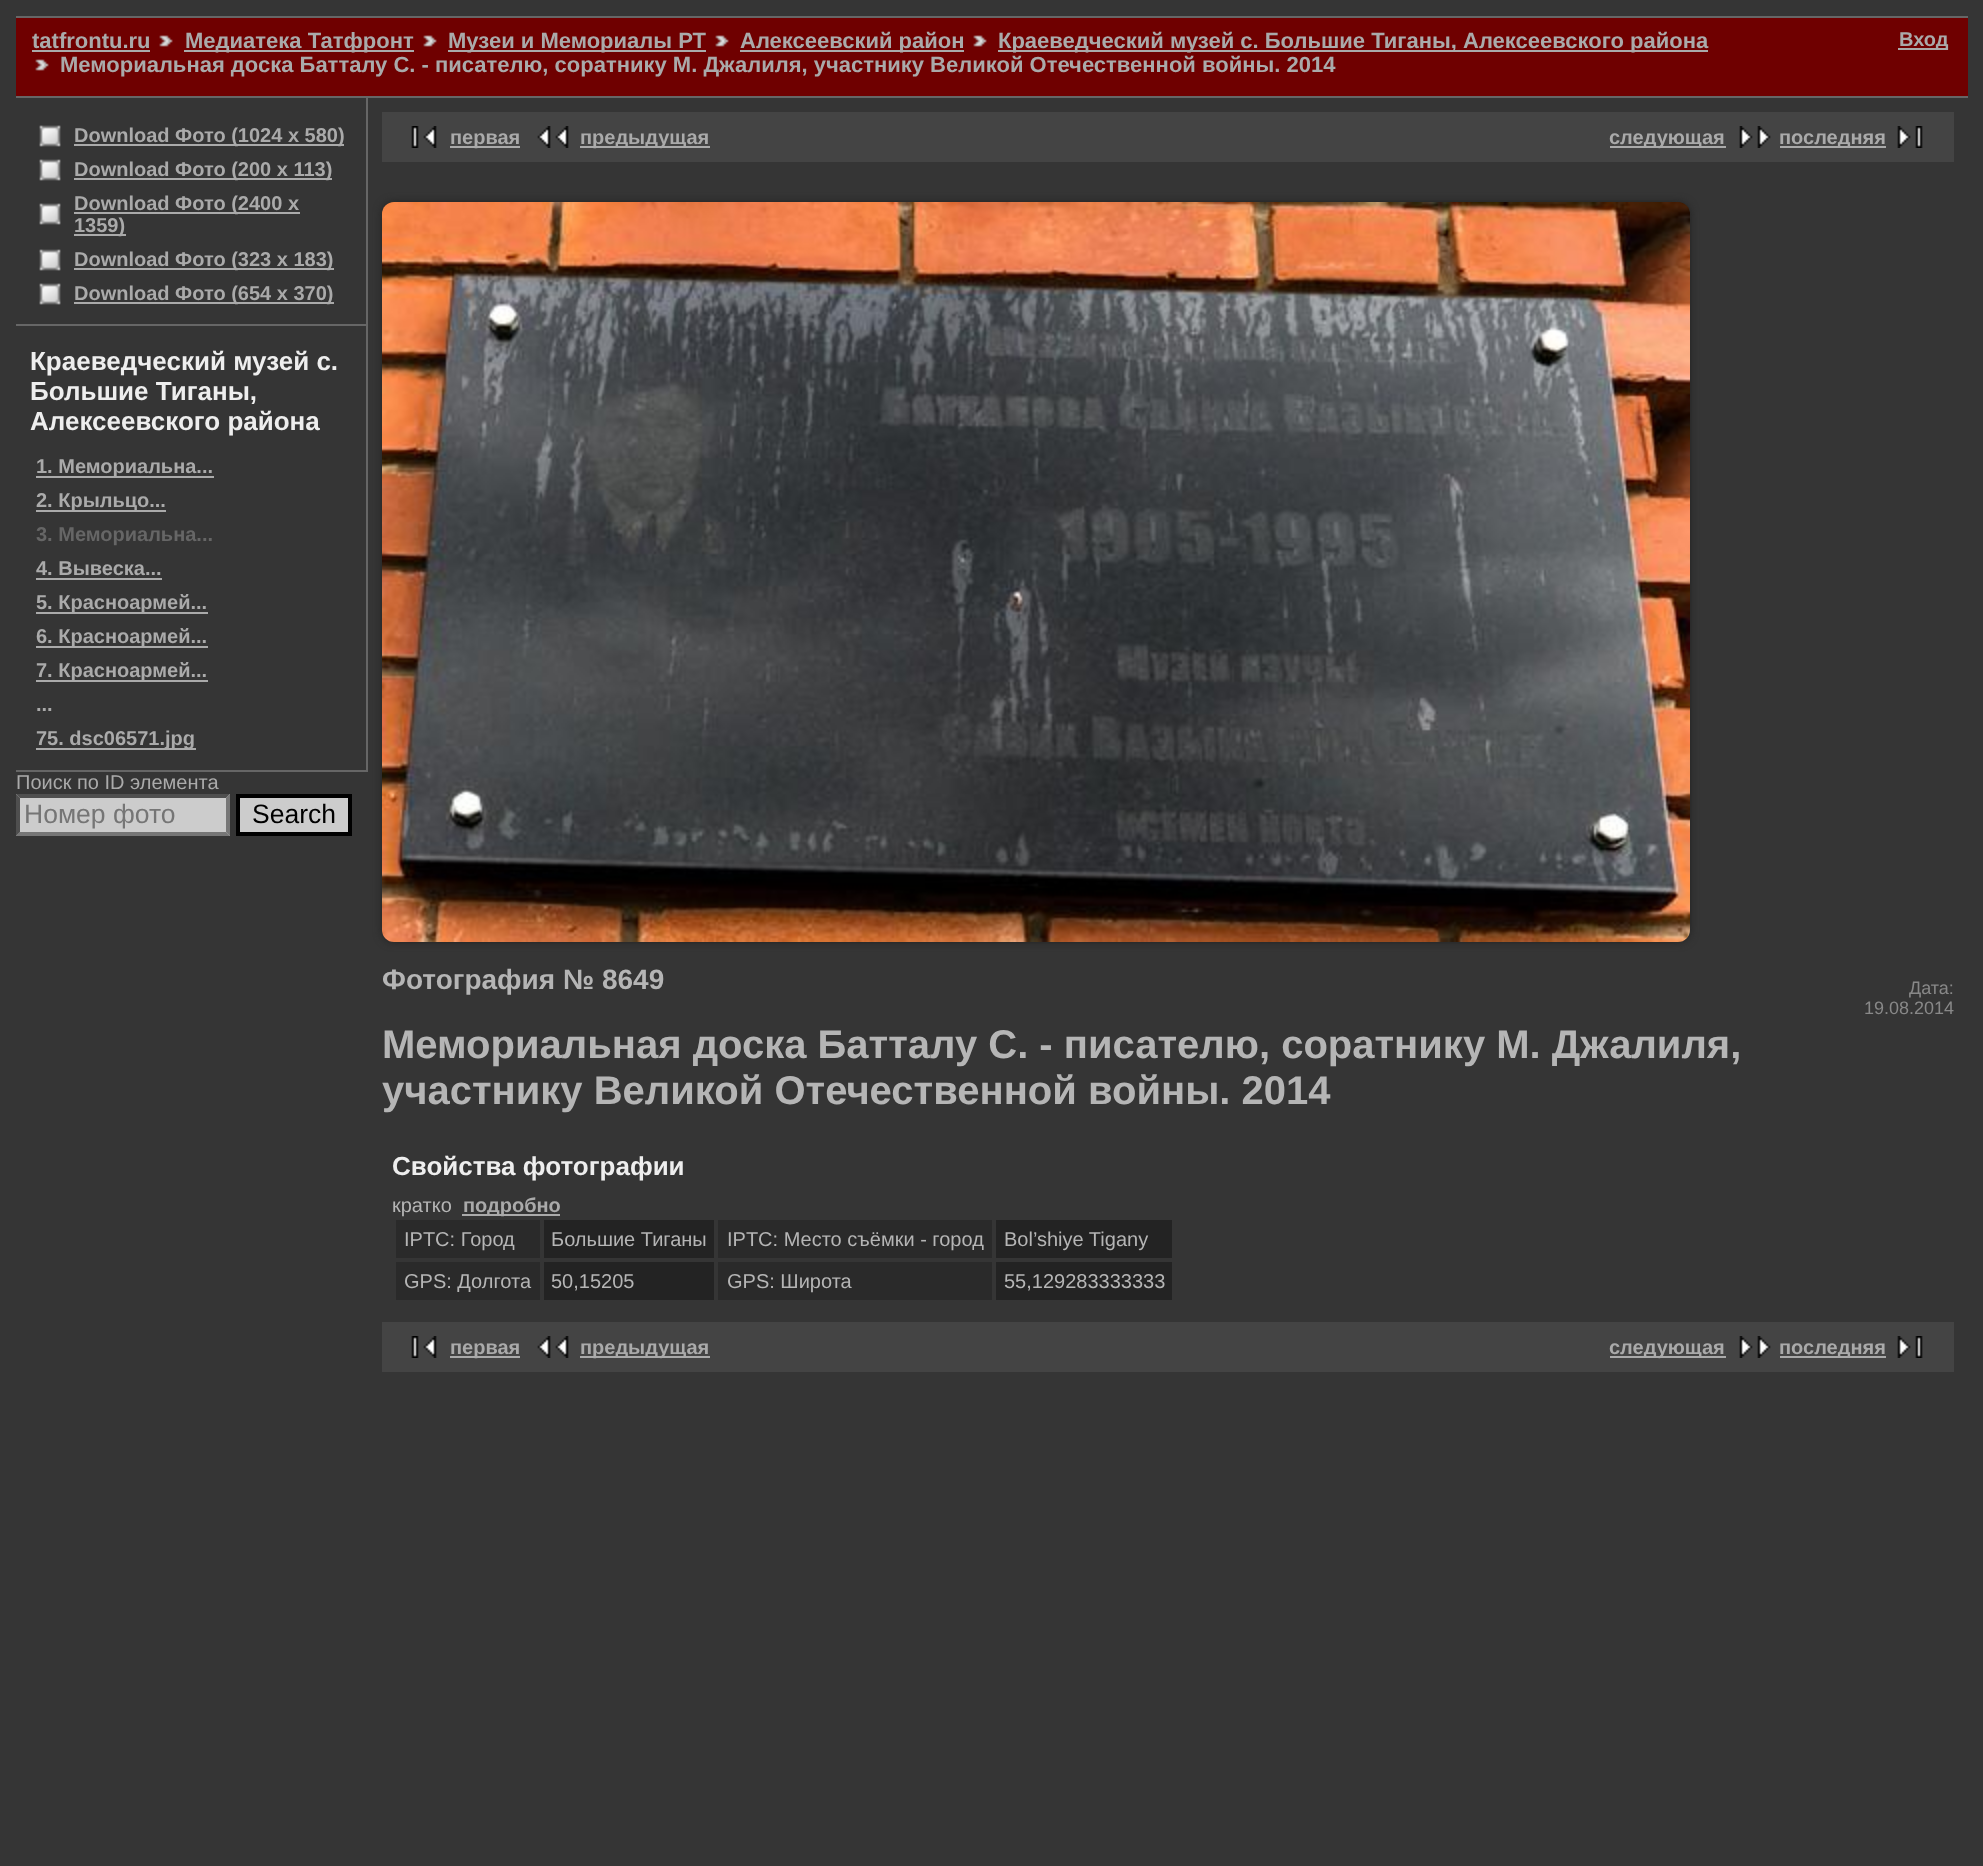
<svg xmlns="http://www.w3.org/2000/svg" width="1983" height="1866">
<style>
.a{font:bold 22px Liberation Sans;fill:#aaa}
.b{font:bold 20px Liberation Sans;fill:#aaa}
.c{font:bold 26px Liberation Sans;fill:#eee}
.d{font:bold 20px Liberation Sans;fill:#666}
.e{font:20px Liberation Sans;fill:#aaa}
.f{font:26.5px Liberation Sans;fill:#757575}
.g{font:26.5px Liberation Sans;fill:#000}
.h{font:bold 28px Liberation Sans;fill:#b5b5b5}
.i{font:bold 40px Liberation Sans;fill:#b5b5b5}
.j{font:18px Liberation Sans;fill:#888}
.k{font:20px Liberation Sans;fill:#b5b5b5}
</style>
<rect width="100%" height="100%" fill="#353535"/>
<path fill="#666" d="M16 16h1952v2H16z"/>
<path fill="#666" d="M16 96h1952v2H16z"/>
<path fill="#6f0000" d="M16 18h1952v78H16z"/>
<path fill="#aaa" d="M32 50h118v2H32z"/>
<image href="1.png" x="159" y="35" width="14" height="12"/>
<path fill="#aaa" d="M184 50h230v2H184z"/>
<image href="1.png" x="423" y="35" width="14" height="12"/>
<path fill="#aaa" d="M448 50h258v2H448z"/>
<image href="1.png" x="715" y="35" width="14" height="12"/>
<path fill="#aaa" d="M740 50h224v2H740z"/>
<image href="1.png" x="973" y="35" width="14" height="12"/>
<path fill="#aaa" d="M998 50h710v2H998z"/>
<image href="1.png" x="35" y="59" width="14" height="12"/>
<path fill="#aaa" d="M1898 48h50v2H1898z"/>
<path fill="#666" d="M366 98h2v674H366z"/>
<path fill="#666" d="M16 324h350v2H16z"/>
<image href="2.png" x="39" y="125" width="22" height="22"/>
<path fill="#aaa" d="M74 144h270v2H74z"/>
<image href="2.png" x="39" y="159" width="22" height="22"/>
<path fill="#aaa" d="M74 178h258v2H74z"/>
<image href="2.png" x="39" y="203" width="22" height="22"/>
<path fill="#aaa" d="M74 212h226v2H74z"/>
<path fill="#aaa" d="M74 234h52v2H74z"/>
<image href="2.png" x="39" y="249" width="22" height="22"/>
<path fill="#aaa" d="M74 268h260v2H74z"/>
<image href="2.png" x="39" y="283" width="22" height="22"/>
<path fill="#aaa" d="M74 302h260v2H74z"/>
<path fill="#666" d="M16 770h350v2H16z"/>
<path fill="#aaa" d="M36 476h178v2H36z"/>
<path fill="#aaa" d="M36 510h130v2H36z"/>
<path fill="#aaa" d="M36 578h126v2H36z"/>
<path fill="#aaa" d="M36 612h172v2H36z"/>
<path fill="#aaa" d="M36 646h172v2H36z"/>
<path fill="#aaa" d="M36 680h172v2H36z"/>
<path fill="#aaa" d="M36 748h160v2H36z"/>
<path fill="#ccc" d="M16 794h214v42H16z"/>
<path fill="#4f4f4f" d="M16 794h214l-4 4h-206z"/>
<path fill="#767676" d="M230 794v42l-4-4v-34z"/>
<path fill="#767676" d="M230 836h-214l4-4h206z"/>
<path fill="#4f4f4f" d="M16 836v-42l4 4v34z"/>
<path fill="#ccc" stroke="#000" stroke-width="4" d="M238 796h112v38H238z"/>
<path fill="#444" d="M382 112h1572v50H382z"/>
<image href="3.png" x="411" y="126" width="26" height="22"/>
<path fill="#aaa" d="M450 146h70v2H450z"/>
<image href="4.png" x="537" y="126" width="32" height="22"/>
<path fill="#aaa" d="M580 146h130v2H580z"/>
<path fill="#aaa" d="M1610 146h116v2H1610z"/>
<image href="5.png" x="1739" y="126" width="32" height="22"/>
<path fill="#aaa" d="M1780 146h106v2H1780z"/>
<image href="6.png" x="1897" y="126" width="26" height="22"/>
<rect fill="#222" filter="blur(4px)" x="382" y="202" width="1308" height="740" rx="12"/>
<image href="7.png" x="382" y="202" width="1308" height="740"/>
<path fill="#aaa" d="M462 1214h98v2H462z"/>
<path fill="#2a2a2a" d="M396 1220h144v38H396z"/>
<path fill="#232323" d="M544 1220h170v38H544z"/>
<path fill="#2a2a2a" d="M718 1220h274v38H718z"/>
<path fill="#232323" d="M996 1220h176v38H996z"/>
<path fill="#2a2a2a" d="M396 1262h144v38H396z"/>
<path fill="#232323" d="M544 1262h170v38H544z"/>
<path fill="#2a2a2a" d="M718 1262h274v38H718z"/>
<path fill="#232323" d="M996 1262h176v38H996z"/>
<path fill="#444" d="M382 1322h1572v50H382z"/>
<image href="3.png" x="411" y="1336" width="26" height="22"/>
<path fill="#aaa" d="M450 1356h70v2H450z"/>
<image href="4.png" x="537" y="1336" width="32" height="22"/>
<path fill="#aaa" d="M580 1356h130v2H580z"/>
<path fill="#aaa" d="M1610 1356h116v2H1610z"/>
<image href="5.png" x="1739" y="1336" width="32" height="22"/>
<path fill="#aaa" d="M1780 1356h106v2H1780z"/>
<image href="6.png" x="1897" y="1336" width="26" height="22"/>
<text class="a" x="32" y="48">tatfrontu.ru</text>
<text class="a" x="185" y="48">Медиатека Татфронт</text>
<text class="a" x="448" y="48">Музеи и Мемориалы РТ</text>
<text class="a" x="740" y="48">Алексеевский район</text>
<text class="a" x="998" y="48">Краеведческий музей с. Большие Тиганы, Алексеевского района</text>
<text class="a" x="60" y="72">Мемориальная доска Батталу С. - писателю, соратнику М. Джалиля, участнику Великой Отечественной войны. 2014</text>
<text class="b" x="1899" y="46">Вход</text>
<text class="b" x="74" y="142">Download Фото (1024 x 580)</text>
<text class="b" x="74" y="176">Download Фото (200 x 113)</text>
<text class="b" x="74" y="210">Download Фото (2400 x</text>
<text class="b" x="74" y="232">1359)</text>
<text class="b" x="74" y="266">Download Фото (323 x 183)</text>
<text class="b" x="74" y="300">Download Фото (654 x 370)</text>
<text class="c" x="30" y="370">Краеведческий музей с.</text>
<text class="c" x="30" y="400">Большие Тиганы,</text>
<text class="c" x="30" y="430">Алексеевского района</text>
<text class="b" x="36" y="473">1. Мемориальна...</text>
<text class="b" x="36" y="507">2. Крыльцо...</text>
<text class="d" x="36" y="541">3. Мемориальна...</text>
<text class="b" x="36" y="575">4. Вывеска...</text>
<text class="b" x="36" y="609">5. Красноармей...</text>
<text class="b" x="36" y="643">6. Красноармей...</text>
<text class="b" x="36" y="677">7. Красноармей...</text>
<text class="b" x="36" y="711">...</text>
<text class="b" x="36" y="745">75. dsc06571.jpg</text>
<text class="e" x="16" y="789">Поиск по ID элемента</text>
<text class="f" x="24" y="823">Номер фото</text>
<text class="g" x="252" y="823">Search</text>
<text class="b" x="450" y="144">первая</text>
<text class="b" x="580" y="144">предыдущая</text>
<text class="b" x="1609" y="144">следующая</text>
<text class="b" x="1779" y="144">последняя</text>
<text class="h" x="382" y="989">Фотография № 8649</text>
<text class="i" x="382" y="1058">Мемориальная доска Батталу С. - писателю, соратнику М. Джалиля,</text>
<text class="i" x="382" y="1104">участнику Великой Отечественной войны. 2014</text>
<text class="j" x="1909" y="994">Дата:</text>
<text class="j" x="1864" y="1014">19.08.2014</text>
<text class="c" x="392" y="1175">Свойства фотографии</text>
<text class="k" x="392" y="1212">кратко</text>
<text class="b" x="463" y="1212">подробно</text>
<text class="k" x="404" y="1246">IPTC: Город</text>
<text class="k" x="551" y="1246">Большие Тиганы</text>
<text class="k" x="727" y="1246">IPTC: Место съёмки - город</text>
<text class="k" x="1004" y="1246">Bol’shiye Tigany</text>
<text class="k" x="404" y="1288">GPS: Долгота</text>
<text class="k" x="551" y="1288">50,15205</text>
<text class="k" x="727" y="1288">GPS: Широта</text>
<text class="k" x="1004" y="1288">55,129283333333</text>
<text class="b" x="450" y="1354">первая</text>
<text class="b" x="580" y="1354">предыдущая</text>
<text class="b" x="1609" y="1354">следующая</text>
<text class="b" x="1779" y="1354">последняя</text>
</svg>
